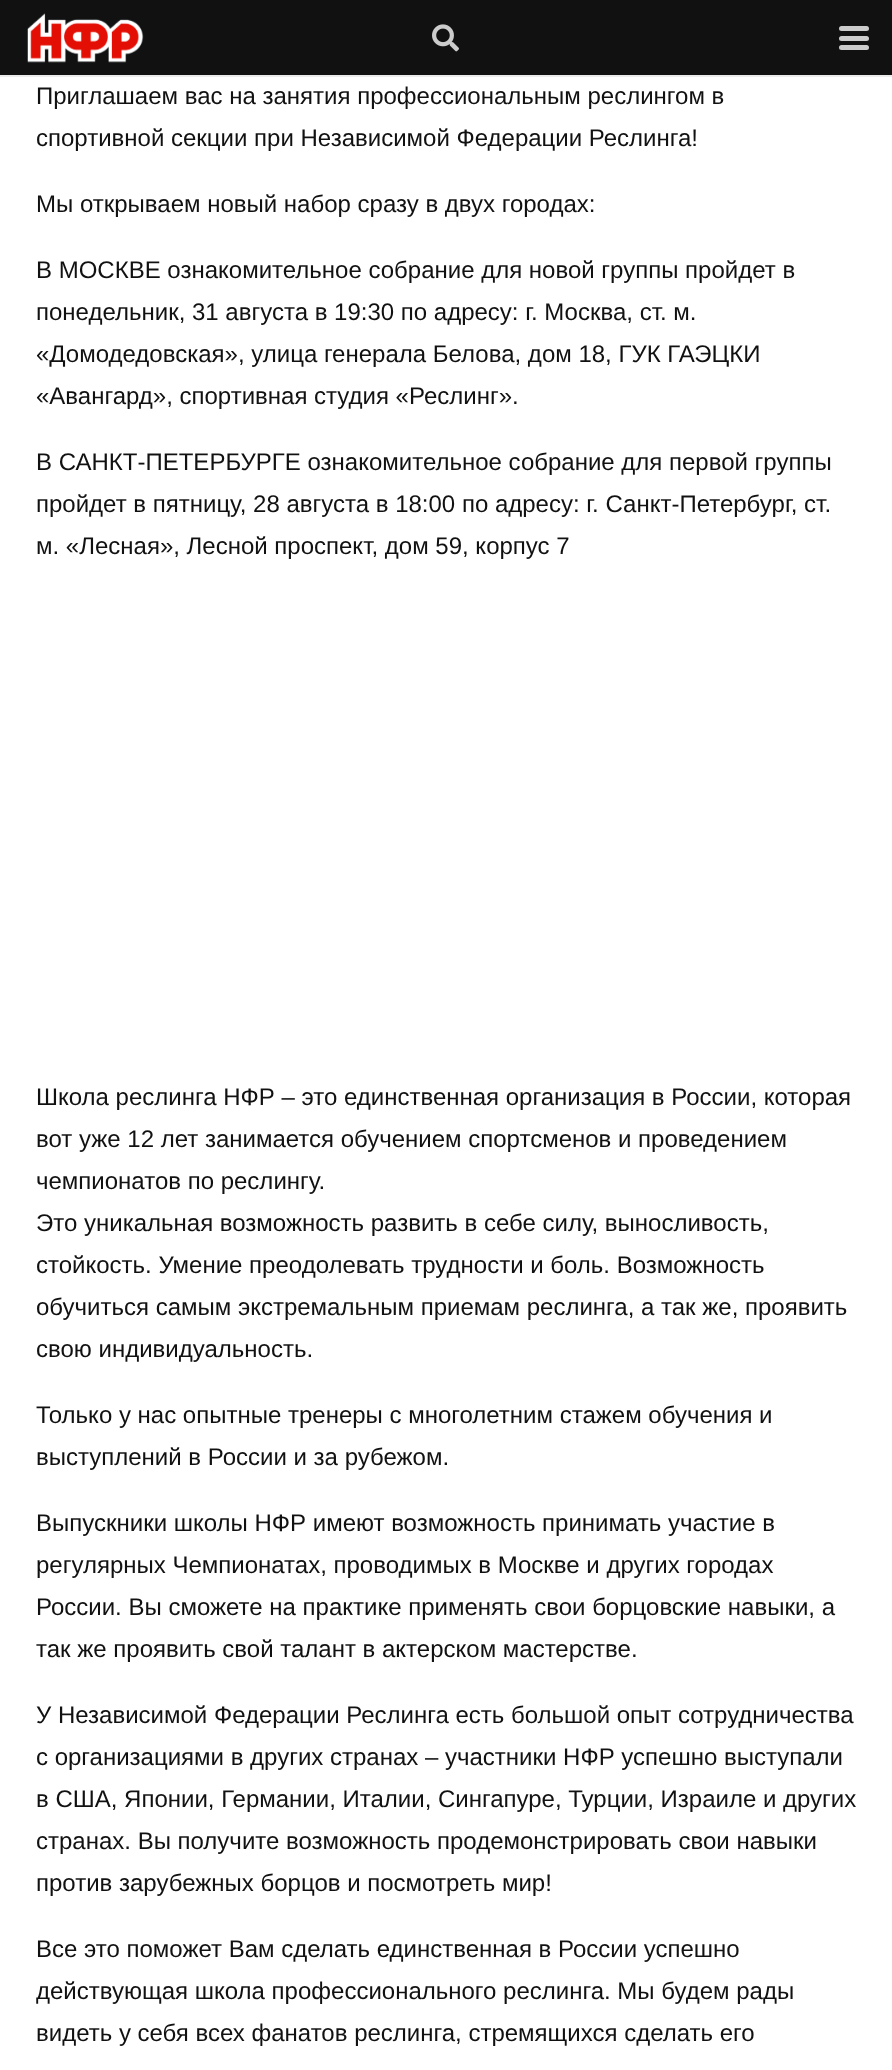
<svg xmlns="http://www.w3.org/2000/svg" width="892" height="2070">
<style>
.a{font:24px Liberation Sans;fill:#111}
</style>
<rect width="100%" height="100%" fill="#fff"/>
<path fill="#ebebeb" d="M0 75v2h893v-75h-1v73z"/>
<path fill="#111" d="M0 0h892v75H0z"/>
<image href="1.png" x="27" y="13" width="117" height="50"/>
<image href="2.png" x="432" y="24" width="27" height="28"/>
<rect fill="#ccc" x="839" y="36" width="30" height="5" rx="2.5"/>
<rect fill="#ccc" x="839" y="26" width="30" height="5" rx="2.5"/>
<rect fill="#ccc" x="839" y="45" width="30" height="5" rx="2.5"/>
<text class="a" x="36" y="104">Приглашаем вас на занятия профессиональным реслингом в</text>
<text class="a" x="36" y="146">спортивной секции при Независимой Федерации Реслинга!</text>
<text class="a" x="36" y="212">Мы открываем новый набор сразу в двух городах:</text>
<text class="a" x="36" y="278">В МОСКВЕ ознакомительное собрание для новой группы пройдет в</text>
<text class="a" x="36" y="320">понедельник, 31 августа в 19:30 по адресу: г. Москва, ст. м.</text>
<text class="a" x="36" y="362">«Домодедовская», улица генерала Белова, дом 18, ГУК ГАЭЦКИ</text>
<text class="a" x="36" y="404">«Авангард», спортивная студия «Реслинг».</text>
<text class="a" x="36" y="470">В САНКТ-ПЕТЕРБУРГЕ ознакомительное собрание для первой группы</text>
<text class="a" x="36" y="512">пройдет в пятницу, 28 августа в 18:00 по адресу: г. Санкт-Петербург, ст.</text>
<text class="a" x="36" y="554">м. «Лесная», Лесной проспект, дом 59, корпус 7</text>
<text class="a" x="36" y="1105">Школа реслинга НФР – это единственная организация в России, которая</text>
<text class="a" x="36" y="1147">вот уже 12 лет занимается обучением спортсменов и проведением</text>
<text class="a" x="36" y="1189">чемпионатов по реслингу.</text>
<text class="a" x="36" y="1231">Это уникальная возможность развить в себе силу, выносливость,</text>
<text class="a" x="36" y="1273">стойкость. Умение преодолевать трудности и боль. Возможность</text>
<text class="a" x="36" y="1315">обучиться самым экстремальным приемам реслинга, а так же, проявить</text>
<text class="a" x="36" y="1357">свою индивидуальность.</text>
<text class="a" x="36" y="1423">Только у нас опытные тренеры с многолетним стажем обучения и</text>
<text class="a" x="36" y="1465">выступлений в России и за рубежом.</text>
<text class="a" x="36" y="1531">Выпускники школы НФР имеют возможность принимать участие в</text>
<text class="a" x="36" y="1573">регулярных Чемпионатах, проводимых в Москве и других городах</text>
<text class="a" x="36" y="1615">России. Вы сможете на практике применять свои борцовские навыки, а</text>
<text class="a" x="36" y="1657">так же проявить свой талант в актерском мастерстве.</text>
<text class="a" x="36" y="1723">У Независимой Федерации Реслинга есть большой опыт сотрудничества</text>
<text class="a" x="36" y="1765">с организациями в других странах – участники НФР успешно выступали</text>
<text class="a" x="36" y="1807">в США, Японии, Германии, Италии, Сингапуре, Турции, Израиле и других</text>
<text class="a" x="36" y="1849">странах. Вы получите возможность продемонстрировать свои навыки</text>
<text class="a" x="36" y="1891">против зарубежных борцов и посмотреть мир!</text>
<text class="a" x="36" y="1957">Все это поможет Вам сделать единственная в России успешно</text>
<text class="a" x="36" y="1999">действующая школа профессионального реслинга. Мы будем рады</text>
<text class="a" x="36" y="2041">видеть у себя всех фанатов реслинга, стремящихся сделать его</text>
</svg>
